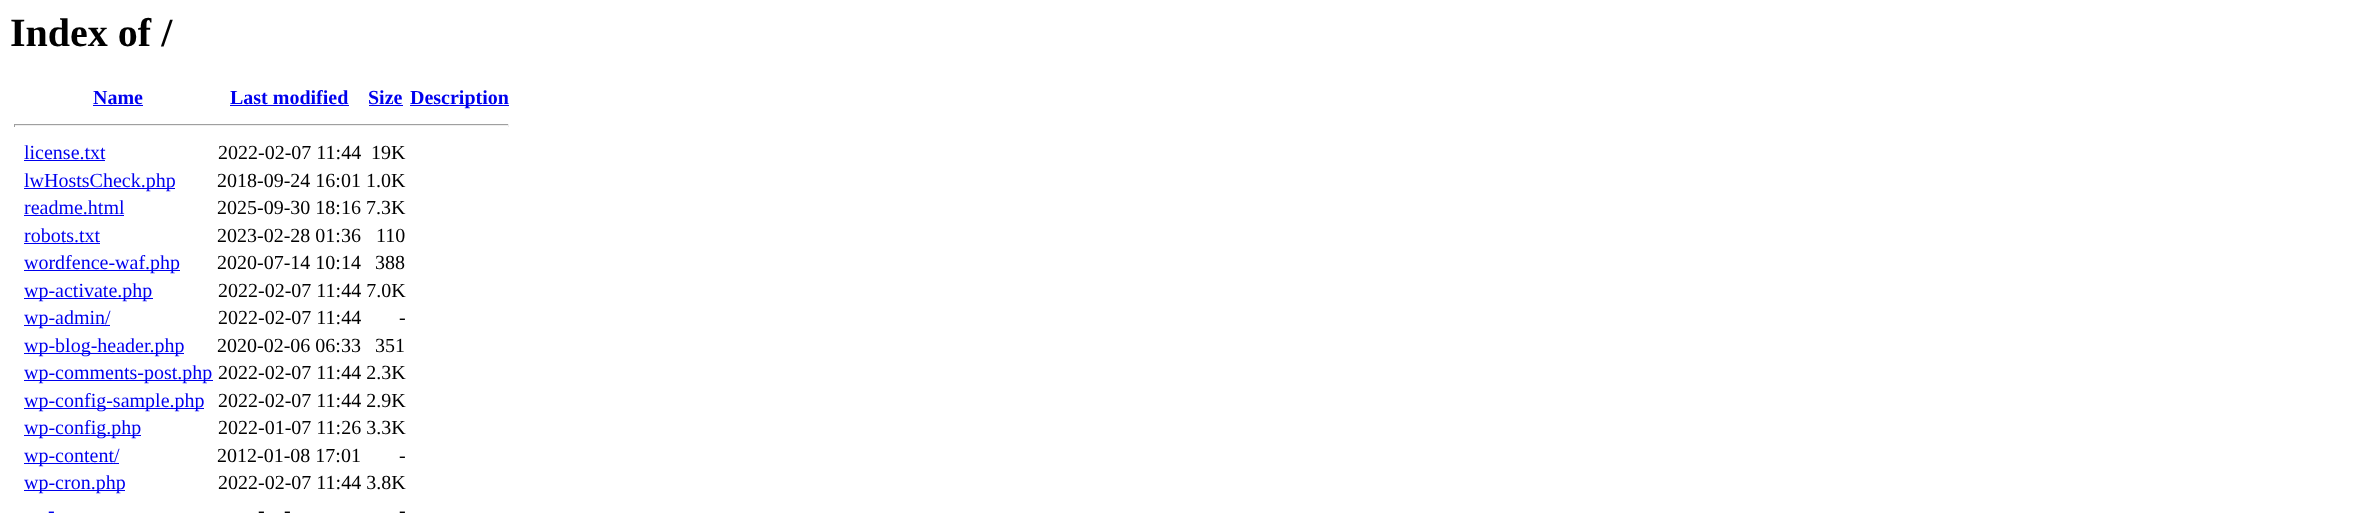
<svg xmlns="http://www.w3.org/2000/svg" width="2375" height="513">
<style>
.a{font:bold 40px Liberation Serif;fill:#000}
.b{font:bold 20px Liberation Serif;fill:#00e}
.c{font:20px Liberation Serif;fill:#00e}
.d{font:20px Liberation Serif;fill:#000}
</style>
<rect width="100%" height="100%" fill="#fff"/>
<path fill="#00e" d="M93 105h50v1H93z"/>
<path fill="#00e" d="M230 105h119v1H230z"/>
<path fill="#00e" d="M369 105h34v1H369z"/>
<path fill="#00e" d="M410 105h99v1H410z"/>
<path fill="#9f9f9f" d="M14 124h495v1H14z"/>
<path fill="#eee" d="M508 124h1v3H508z"/>
<path fill="#eee" d="M14 125h495v1H14z"/>
<path fill="#9f9f9f" d="M14 124h1v3H14z"/>
<path fill="#00e" d="M24 160h81v1H24z"/>
<path fill="#00e" d="M24 188h151v1H24z"/>
<path fill="#00e" d="M24 215h100v1H24z"/>
<path fill="#00e" d="M24 243h76v1H24z"/>
<path fill="#00e" d="M24 270h156v1H24z"/>
<path fill="#00e" d="M24 298h129v1H24z"/>
<path fill="#00e" d="M24 325h86v1H24z"/>
<path fill="#00e" d="M24 353h160v1H24z"/>
<path fill="#00e" d="M24 380h189v1H24z"/>
<path fill="#00e" d="M24 408h180v1H24z"/>
<path fill="#00e" d="M24 435h117v1H24z"/>
<path fill="#00e" d="M24 463h95v1H24z"/>
<path fill="#00e" d="M24 490h101v1H24z"/>
<text class="a" x="10" y="46">Index of /</text>
<text class="b" x="93" y="104">Name</text>
<text class="b" x="230" y="104">Last modified</text>
<text class="b" x="368" y="104">Size</text>
<text class="b" x="410" y="104">Description</text>
<text class="c" x="24" y="159">license.txt</text>
<text class="d" x="218" y="159">2022-02-07 11:44</text>
<text class="d" x="371" y="159">19K</text>
<text class="c" x="24" y="187">lwHostsCheck.php</text>
<text class="d" x="217" y="187">2018-09-24 16:01 1.0K</text>
<text class="c" x="24" y="214">readme.html</text>
<text class="d" x="217" y="214">2025-09-30 18:16 7.3K</text>
<text class="c" x="24" y="242">robots.txt</text>
<text class="d" x="217" y="242">2023-02-28 01:36</text>
<text class="d" x="376" y="242">110</text>
<text class="c" x="24" y="269">wordfence-waf.php</text>
<text class="d" x="217" y="269">2020-07-14 10:14</text>
<text class="d" x="375" y="269">388</text>
<text class="c" x="24" y="297">wp-activate.php</text>
<text class="d" x="218" y="297">2022-02-07 11:44 7.0K</text>
<text class="c" x="24" y="324">wp-admin/</text>
<text class="d" x="218" y="324">2022-02-07 11:44</text>
<text class="d" x="399" y="324">-</text>
<text class="c" x="24" y="352">wp-blog-header.php</text>
<text class="d" x="217" y="352">2020-02-06 06:33</text>
<text class="d" x="375" y="352">351</text>
<text class="c" x="24" y="379">wp-comments-post.php</text>
<text class="d" x="218" y="379">2022-02-07 11:44 2.3K</text>
<text class="c" x="24" y="407">wp-config-sample.php</text>
<text class="d" x="218" y="407">2022-02-07 11:44 2.9K</text>
<text class="c" x="24" y="434">wp-config.php</text>
<text class="d" x="218" y="434">2022-01-07 11:26 3.3K</text>
<text class="c" x="24" y="462">wp-content/</text>
<text class="d" x="217" y="462">2012-01-08 17:01</text>
<text class="d" x="399" y="462">-</text>
<text class="c" x="24" y="489">wp-cron.php</text>
<text class="d" x="218" y="489">2022-02-07 11:44 3.8K</text>
<text class="c" x="48" y="517">-</text>
<text class="d" x="258" y="517">-</text>
<text class="d" x="284" y="517">-</text>
<text class="d" x="399" y="517">-</text>
</svg>
